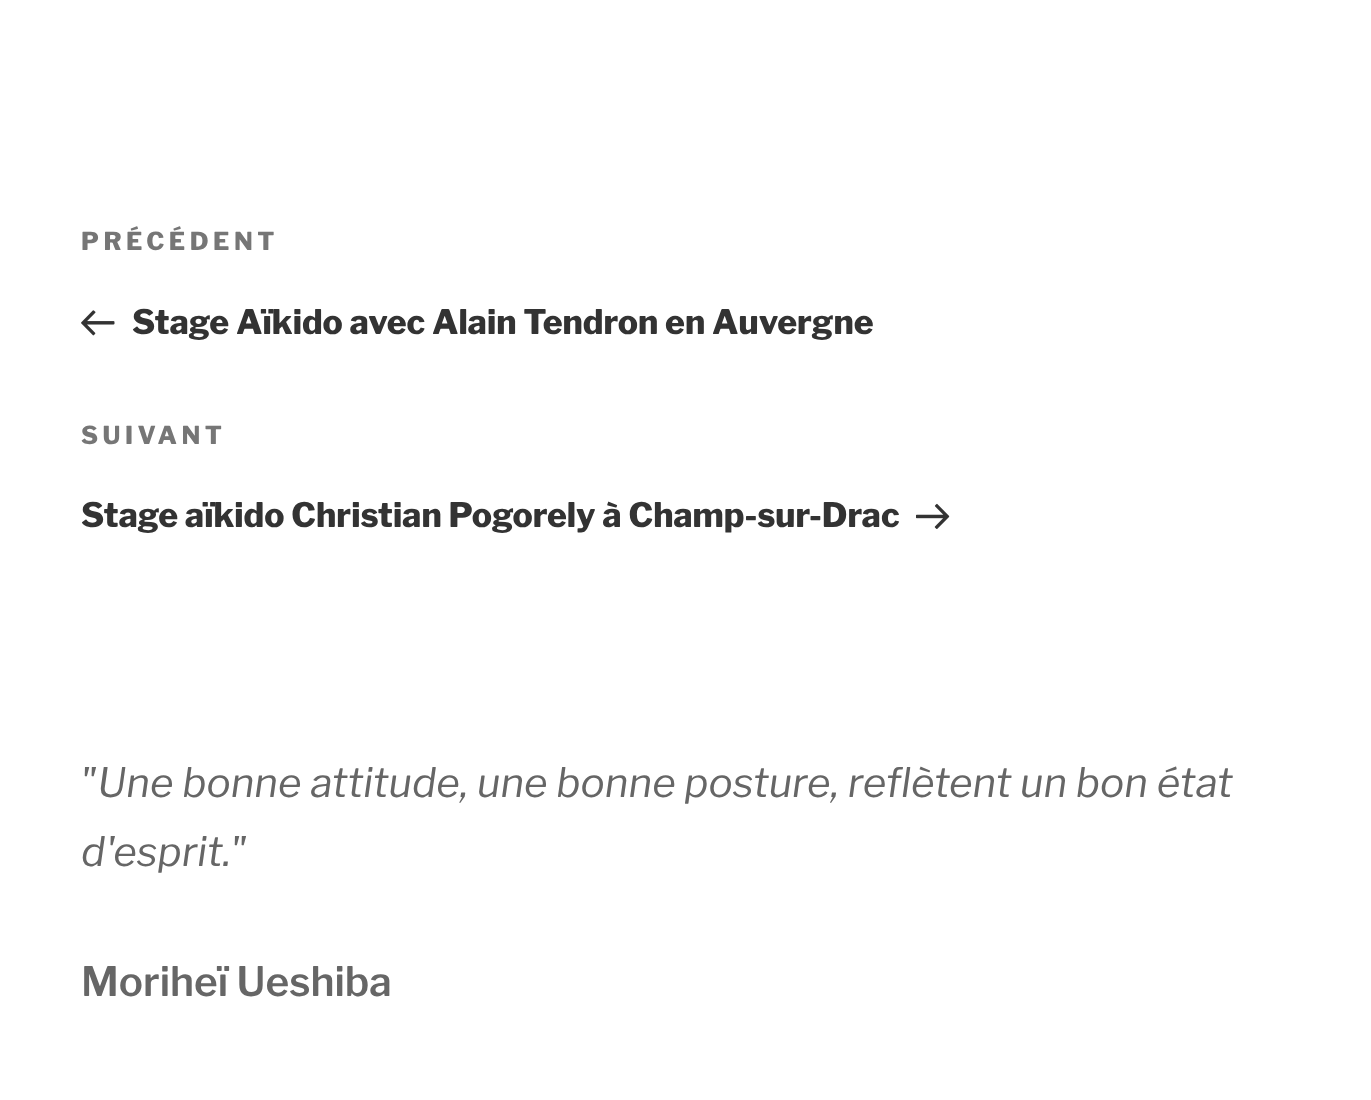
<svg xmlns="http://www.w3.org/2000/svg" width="1371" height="1100">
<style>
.a{font:100 24.75px Libre Franklin;letter-spacing:4.5px;fill:#767676}
.b{font:100 33.75px Libre Franklin;fill:#333}
.c{font:italic 100 40.5px Libre Franklin;fill:#666}
.d{font:100 40.5px 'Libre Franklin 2';fill:#666}
</style>
<rect width="100%" height="100%" fill="#fff"/>
<image href="1.png" x="81" y="310" width="34" height="26"/>
<image href="2.png" x="916" y="503" width="34" height="26"/>
<text class="a" x="81" y="250">PRÉCÉDENT</text>
<text class="b" x="132" y="334">Stage Aïkido avec Alain Tendron en Auvergne</text>
<text class="a" x="81" y="444">SUIVANT</text>
<text class="b" x="81" y="527">Stage aïkido Christian Pogorely à Champ-sur-Drac</text>
<text class="c" x="81" y="797">"Une bonne attitude, une bonne posture, reflètent un bon état</text>
<text class="c" x="81" y="866">d'esprit."</text>
<text class="d" x="81" y="996">Moriheï Ueshiba</text>
</svg>
